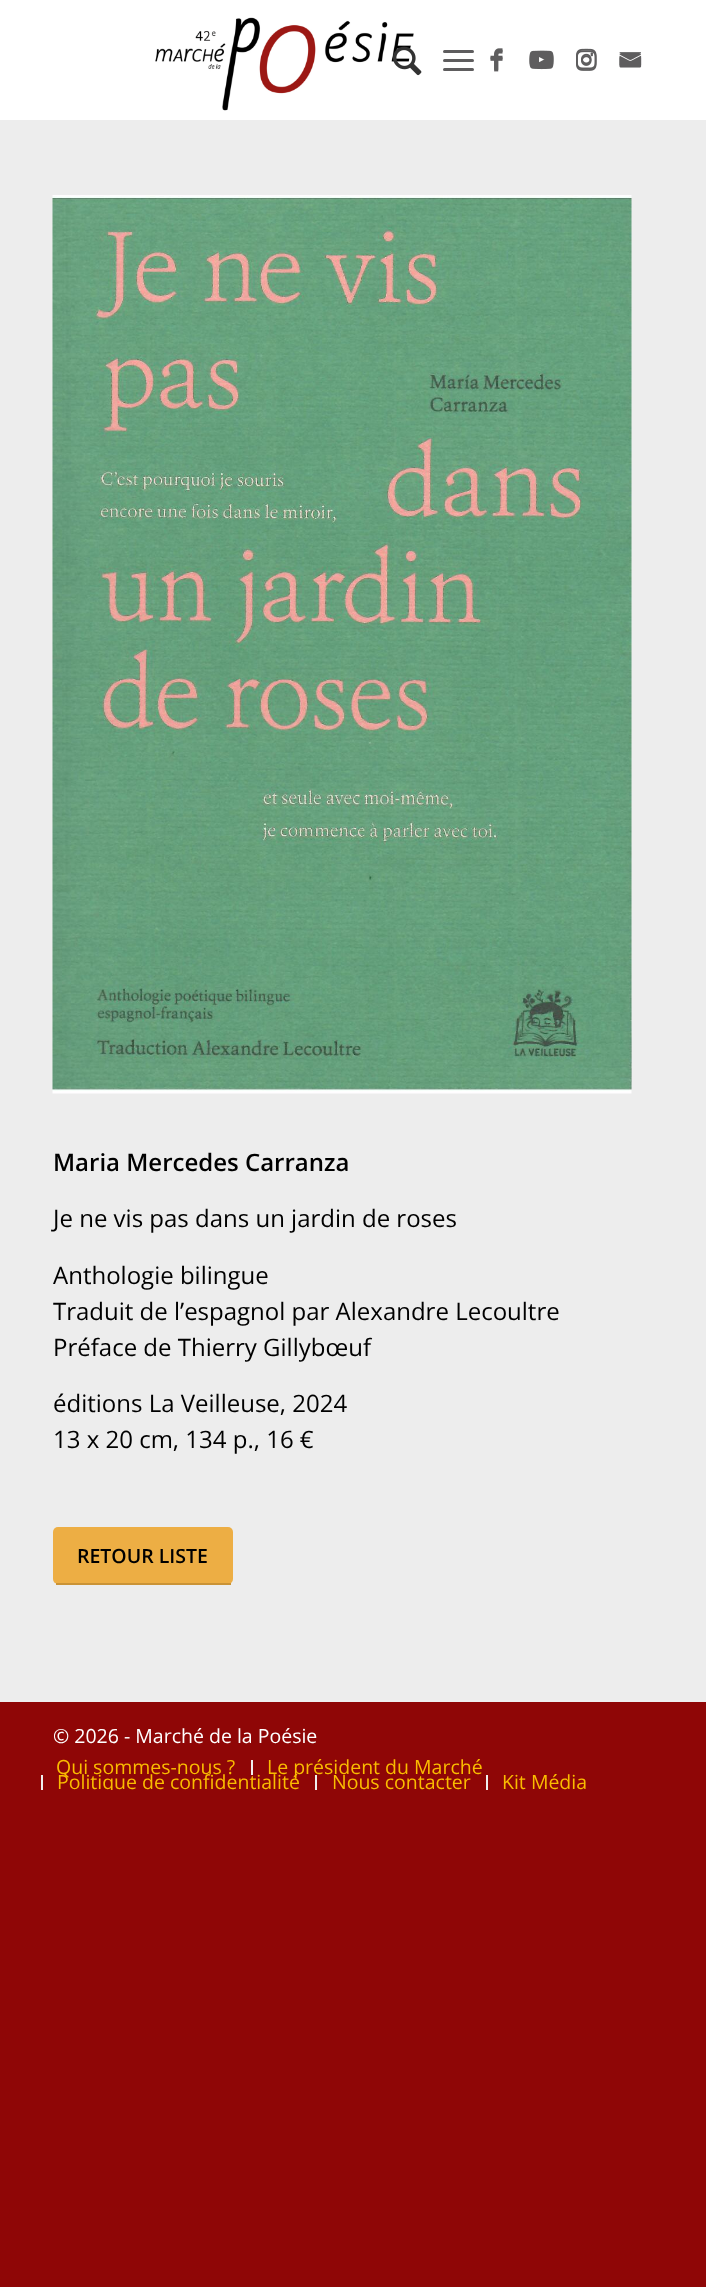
<svg xmlns="http://www.w3.org/2000/svg" width="706" height="2287">
<style>
.a{font:600 24px Open Sans;fill:#000}
.b{font:24px Open Sans;fill:#000}
.c{font:600 19.5px Open Sans;fill:#000}
.d{font:19.5px Open Sans;fill:#fff}
.e{font:19.5px Open Sans;fill:#fabc00}
</style>
<defs>
<clipPath id="clip1"><path d="M30 1751h602v39H30z"/></clipPath>
</defs>
<rect width="100%" height="100%" fill="#8f0606"/>
<path fill="#fff" d="M0 0h706v120H0z"/>
<image href="1.png" x="155" y="17" width="259" height="94"/>
<image href="2.png" x="393" y="46" width="29" height="30"/>
<rect fill="#5e5d5e" x="443" y="59" width="31" height="3" rx="1.5"/>
<rect fill="#5e5d5e" x="443" y="50" width="31" height="3" rx="1.5"/>
<rect fill="#5e5d5e" x="443" y="68" width="31" height="3" rx="1.5"/>
<image href="3.png" x="490" y="49" width="13" height="23"/>
<image href="4.png" x="529" y="53" width="25" height="17"/>
<image href="5.png" x="576" y="50" width="21" height="21"/>
<image href="6.png" x="619" y="53" width="23" height="15"/>
<image href="7.png" x="490" y="48" width="13" height="22"/>
<image href="8.png" x="529" y="50" width="25" height="15"/>
<image href="9.png" x="576" y="48" width="21" height="22"/>
<image href="10.png" x="619" y="52" width="23" height="14"/>
<path fill="#ededed" d="M0 120h706v1580H0z"/>
<image href="11.png" x="52" y="195" width="580" height="899"/>
<rect fill="#edae44" x="53" y="1527" width="180" height="57" rx="5"/>
<path fill="#ca9336" d="M56 1583h175v2H56z"/>
<path fill="#eee" d="M0 1700h706v2H0z"/>
<path fill="#eee" d="M251 1760h2v15H251z"/>
<path fill="#eee" d="M41 1775h2v15H41z"/>
<path fill="#eee" d="M486 1775h2v15H486z"/>
<text class="a" x="53" y="1171">Maria Mercedes Carranza</text>
<text class="b" x="53" y="1227">Je ne vis pas dans un jardin de roses</text>
<text class="b" x="53" y="1284">Anthologie bilingue</text>
<text class="b" x="53" y="1320">Traduit de l’espagnol par Alexandre Lecoultre</text>
<text class="b" x="53" y="1356">Préface de Thierry Gillybœuf</text>
<text class="b" x="53" y="1412">éditions La Veilleuse, 2024</text>
<text class="b" x="53" y="1448">13 x 20 cm, 134 p., 16 €</text>
<text class="c" x="77" y="1563">RETOUR LISTE</text>
<text class="d" x="53" y="1743">© 2026 - Marché de la Poésie</text>
<text class="e" x="56" y="1774">Qui sommes-nous ?</text>
<text class="e" x="267" y="1774">Le président du Marché</text>
<g clip-path="url(#clip1)">
<text class="e" x="57" y="1789">Politique de confidentialité</text>
</g>
<path fill="#eee" d="M315 1775h2v15H315z"/>
<text class="e" x="332" y="1789">Nous contacter</text>
<text class="e" x="502" y="1789">Kit Média</text>
</svg>
